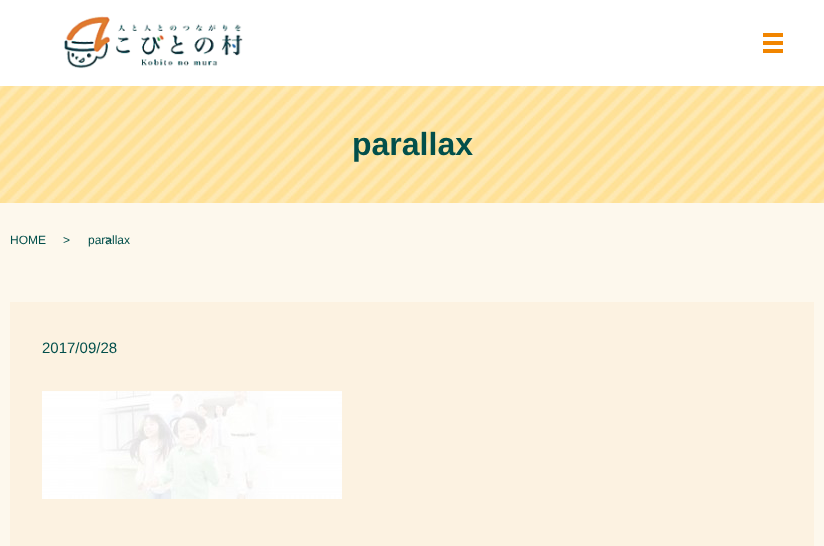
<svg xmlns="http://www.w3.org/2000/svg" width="824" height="546">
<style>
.a{font:bold 32px Liberation Sans;fill:#024f4b}
.b{font:12px Liberation Sans;fill:#024f4b}
.c{font:15px Liberation Sans;fill:#024f4b}
</style>
<rect width="100%" height="100%" fill="#fdf8ed"/>
<path fill="#fff" d="M0 0h824v86H0z"/>
<image href="1.png" x="64" y="16" width="179" height="53"/>
<path fill="#f18500" d="M763 33h20v4H763z"/>
<path fill="#f18500" d="M763 41h20v4H763z"/>
<path fill="#f18500" d="M763 49h20v4H763z"/>
<image href="2.png" x="0" y="86" width="824" height="117"/>
<path fill="#fcf2e1" d="M10 302h804v244H10z"/>
<image href="3.png" x="42" y="391" width="300" height="108"/>
<text class="a" x="352" y="155">parallax</text>
<text class="b" x="10" y="244">HOME</text>
<text class="b" x="63" y="244">&gt;</text>
<text class="b" x="105" y="244">&gt;</text>
<text class="b" x="88" y="244">parallax</text>
<text class="c" x="42" y="353">2017/09/28</text>
</svg>
